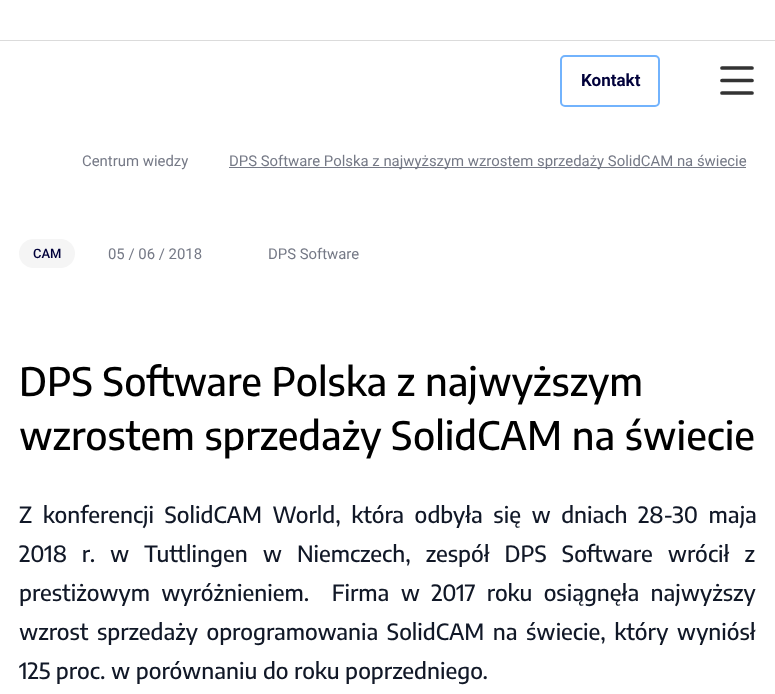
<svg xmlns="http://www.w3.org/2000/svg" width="775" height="694">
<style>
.a{font:bold 17px Roboto;fill:#00003a}
.b{font:14.9px Roboto;fill:#757986}
.c{font:500 13px Roboto;fill:#00003a}
.d{font:500 39.1px Encode Sans Condensed;fill:#000}
.e{font:500 22.3px Encode Sans Condensed;fill:#111827}
</style>
<rect width="100%" height="100%" fill="#fff"/>
<path fill="#dbdbdb" d="M0 40h775v1H0z"/>
<rect fill="none" stroke="#72b3fd" stroke-width="2" x="561" y="56" width="98" height="50" rx="4"/>
<path fill="none" stroke="#333" stroke-width="3.7" stroke-linecap="round" stroke-linejoin="round" d="M722 68h30m-30 12.5h30m-30 12.5h30"/>
<path fill="#757986" d="M229 167h517v1H229z"/>
<rect fill="#f5f5f5" x="19" y="239" width="56" height="29" rx="14.5"/>
<text class="a" x="581" y="86">Kontakt</text>
<text class="b" x="82" y="166">Centrum wiedzy</text>
<text class="b" x="229" y="166">DPS Software Polska z najwyższym wzrostem sprzedaży SolidCAM na świecie</text>
<text class="c" x="33" y="258">CAM</text>
<text class="b" x="108" y="259">05 / 06 / 2018</text>
<text class="b" x="268" y="259">DPS Software</text>
<text class="d" x="19" y="396">DPS Software Polska z najwyższym</text>
<text class="d" x="19" y="450">wzrostem sprzedaży SolidCAM na świecie</text>
<text class="e" x="19" y="523" word-spacing="5">Z konferencji SolidCAM World, która odbyła się w dniach 28-30 maja</text>
<text class="e" x="19" y="562" word-spacing="9.5">2018 r. w Tuttlingen w Niemczech, zespół DPS Software wrócił z</text>
<text class="e" xml:space="preserve" x="19" y="601" word-spacing="5.75">prestiżowym wyróżnieniem.  Firma w 2017 roku osiągnęła najwyższy</text>
<text class="e" x="19" y="640" word-spacing="3">wzrost sprzedaży oprogramowania SolidCAM na świecie, który wyniósł</text>
<text class="e" x="19" y="679">125 proc. w porównaniu do roku poprzedniego.</text>
</svg>
